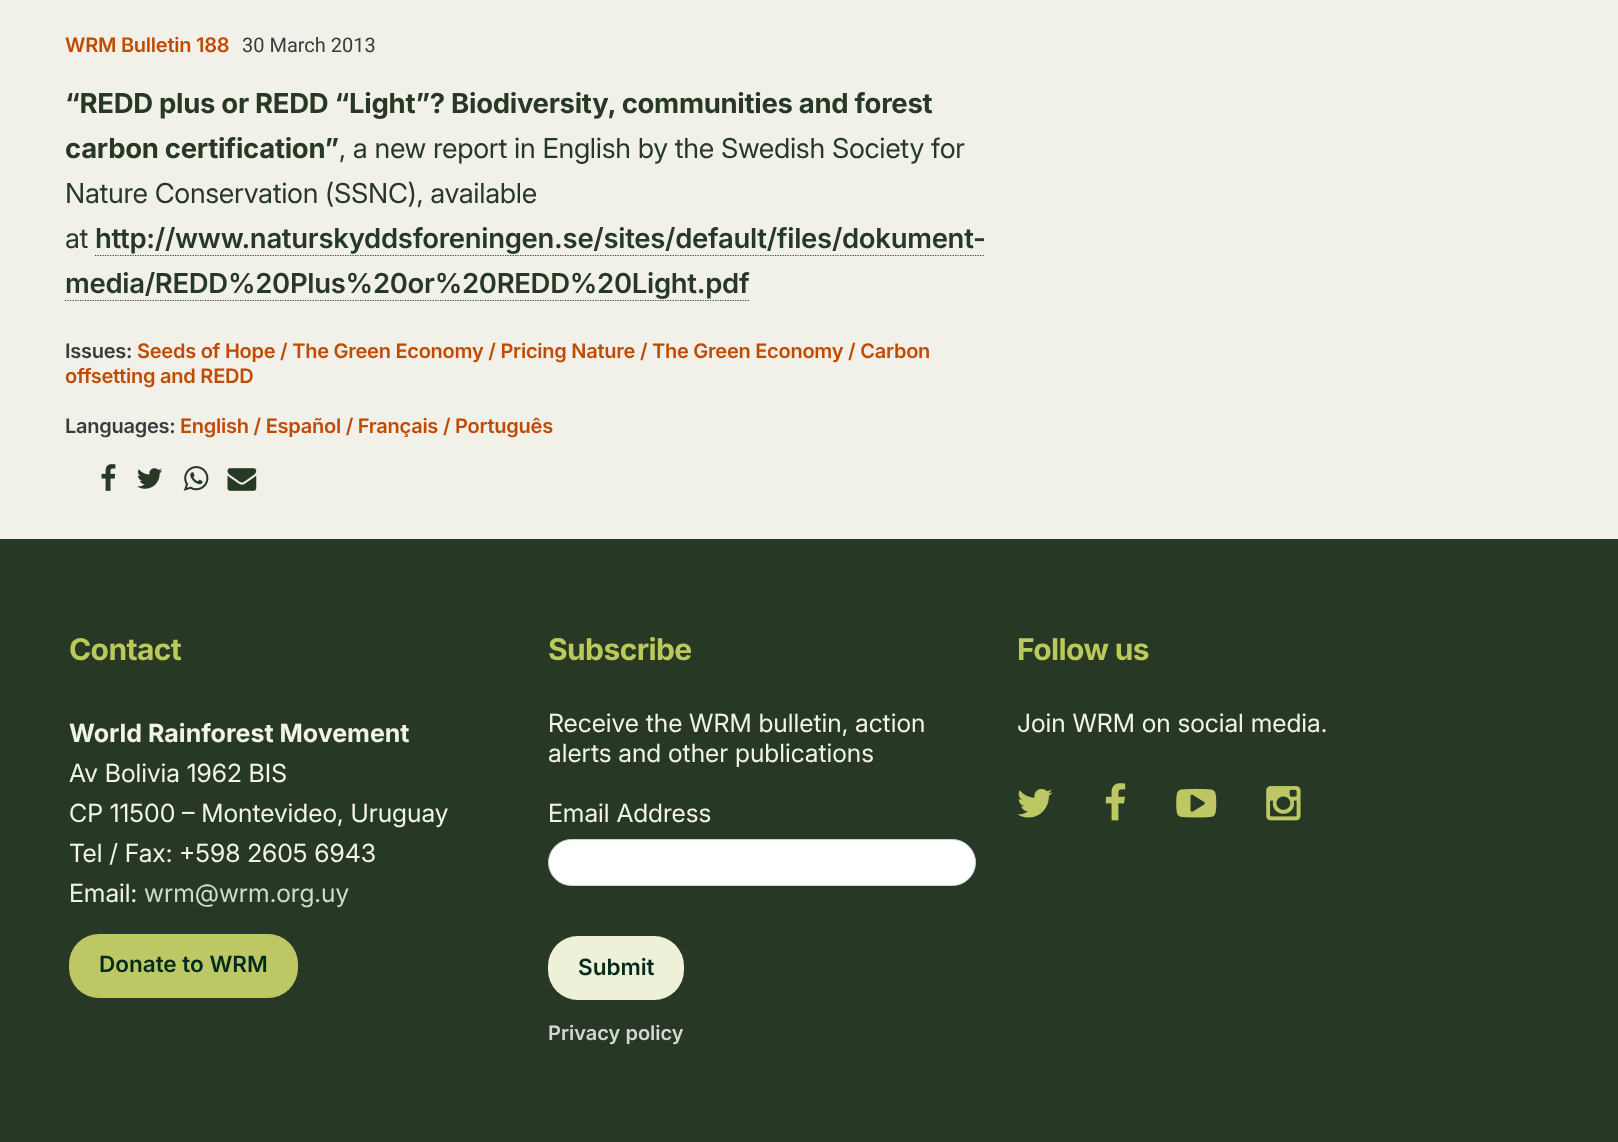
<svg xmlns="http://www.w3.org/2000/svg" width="1618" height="1142">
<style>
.a{font:600 20px Inter;letter-spacing:-0.25px;fill:#c24a00}
.b{font:20px Roboto;fill:#3b3b3b}
.c{font:bold 27.5px Inter;letter-spacing:-0.3px;fill:#273924}
.d{font:27.5px Inter;letter-spacing:-0.3px;fill:#273924}
.e{font:600 27.5px Inter;letter-spacing:-0.3px;fill:#273924}
.f{font:600 20px Inter;letter-spacing:-0.25px;fill:#3b3b3b}
.g{font:bold 30px Inter;letter-spacing:-0.6px;fill:#bbc85a}
.h{font:bold 25px Inter;fill:#f2f4e6}
.i{font:25px 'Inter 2';fill:#f2f4e6}
.j{font:25px 'Inter 2';fill:#d4d7d3}
.k{font:600 22.5px Inter;fill:#022b1c}
.l{font:600 20px Inter;fill:#d4d7d3}
</style>
<rect width="100%" height="100%" fill="#273924"/>
<path fill="#f1f1e9" d="M0 0h1618v539H0z"/>
<path fill="none" stroke="#334d30" stroke-width="1.2" stroke-dasharray="1.25 1.25" d="M95 255.5h890"/>
<path fill="none" stroke="#334d30" stroke-width="1.2" stroke-dasharray="1.25 1.25" d="M65 300.5h684"/>
<image href="1.png" x="101" y="464" width="15" height="27"/>
<image href="2.png" x="137" y="468" width="26" height="21"/>
<image href="3.png" x="183" y="466" width="26" height="25"/>
<image href="4.png" x="227" y="468" width="30" height="23"/>
<rect fill="#bdc865" x="69" y="934" width="229" height="64" rx="30"/>
<rect fill="#fff" stroke="#ced4da" x="548.5" y="839.5" width="427" height="46" rx="23"/>
<rect fill="#eef1d8" x="548" y="936" width="136" height="64" rx="30"/>
<image href="5.png" x="1017" y="788" width="36" height="30"/>
<image href="6.png" x="1105" y="783" width="21" height="38"/>
<image href="7.png" x="1176" y="788" width="41" height="30"/>
<image href="8.png" x="1266" y="786" width="35" height="35"/>
<text class="a" x="65" y="52">WRM Bulletin 188</text>
<text class="b" x="242" y="52">30 March 2013</text>
<text class="c" x="65" y="113">“REDD plus or REDD “Light”? Biodiversity, communities and forest</text>
<text class="c" x="65" y="158">carbon certification”</text>
<text class="d" x="339" y="158">, a new report in English by the Swedish Society for</text>
<text class="d" x="65" y="203">Nature Conservation (SSNC), available</text>
<text class="d" x="65" y="248">at</text>
<text class="e" x="95" y="248">http://www.naturskyddsforeningen.se/sites/default/files/dokument-</text>
<text class="e" x="65" y="293">media/REDD%20Plus%20or%20REDD%20Light.pdf</text>
<text class="f" x="65" y="358">Issues:</text>
<text class="a" x="137" y="358">Seeds of Hope / The Green Economy / Pricing Nature / The Green Economy / Carbon</text>
<text class="a" x="65" y="383">offsetting and REDD</text>
<text class="f" x="65" y="433">Languages:</text>
<text class="a" x="180" y="433">English / Español / Français / Português</text>
<text class="g" x="69" y="660">Contact</text>
<text class="h" x="69" y="742">World Rainforest Movement</text>
<text class="i" x="69" y="782">Av Bolivia 1962 BIS</text>
<text class="i" x="69" y="822">CP 11500 – Montevideo, Uruguay</text>
<text class="i" x="69" y="862">Tel / Fax: +598 2605 6943</text>
<text class="i" x="69" y="902">Email:</text>
<text class="j" x="144" y="902">wrm@wrm.org.uy</text>
<text class="k" x="99" y="972">Donate to WRM</text>
<text class="g" x="548" y="660">Subscribe</text>
<text class="i" x="548" y="732">Receive the WRM bulletin, action</text>
<text class="i" x="548" y="762">alerts and other publications</text>
<text class="i" x="548" y="822">Email Address</text>
<text class="k" x="578" y="975">Submit</text>
<text class="l" x="548" y="1040">Privacy policy</text>
<text class="g" x="1017" y="660">Follow us</text>
<text class="i" x="1017" y="732">Join WRM on social media.</text>
</svg>
